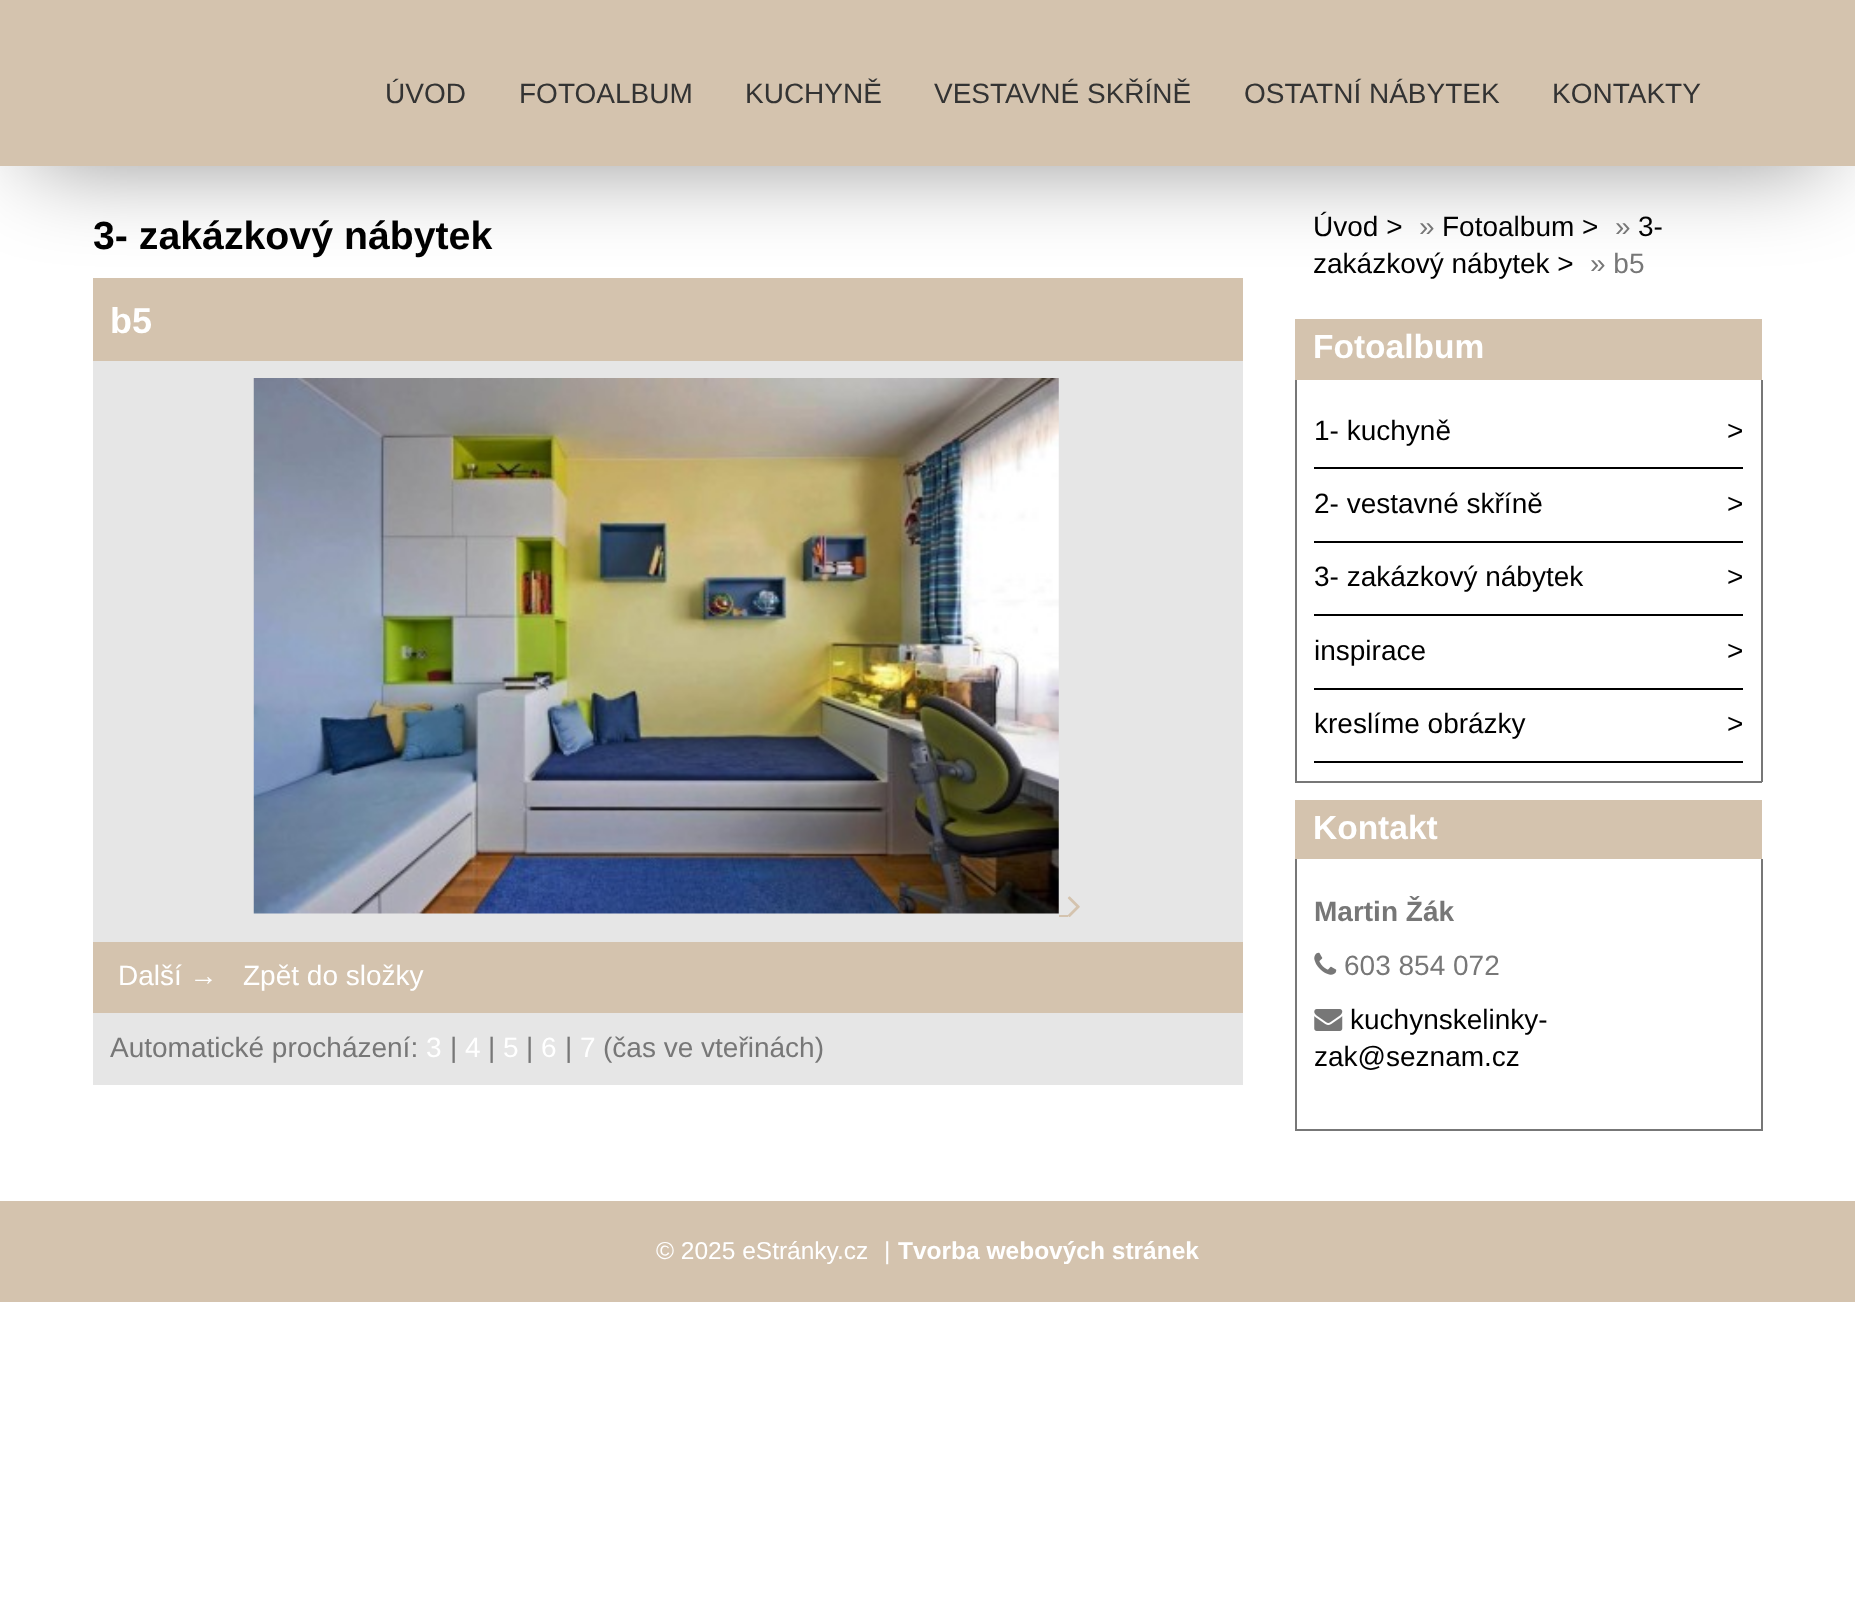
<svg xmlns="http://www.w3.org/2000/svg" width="1855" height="1613">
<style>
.a{font:28px Liberation Sans;fill:#333}
.b{font:bold 39.25px Liberation Sans;fill:#000}
.c{font:bold 36px Liberation Sans;fill:#fff}
.d{font:28px Liberation Sans;fill:#fff}
.e{font:28px Liberation Sans;fill:#777}
.f{font:28px Liberation Sans;fill:#000}
.g{font:bold 33.5px Liberation Sans;fill:#fff}
.h{font:bold 28px Liberation Sans;fill:#777}
.i{font:24.5px Liberation Sans;fill:#fff}
.j{font:bold 24.5px Liberation Sans;fill:#fff}
</style>
<rect width="100%" height="100%" fill="#fff"/>
<path fill="#d4c3ae" d="M93 278h1150v83H93z"/>
<path fill="#00000073" filter="blur(47px)" d="M32 58h1792v103H32z"/>
<path fill="#d4c3ae" d="M0 0h1855v166H0z"/>
<path fill="#e6e6e6" d="M93 361h1150v581H93z"/>
<image href="1.png" x="253" y="378" width="806" height="536"/>
<path fill="#d4c3ae" d="M1059 915h9v2H1059z"/>
<image href="2.png" x="1067" y="896" width="13" height="21"/>
<path fill="#d4c3ae" d="M93 942h1150v71H93z"/>
<path fill="#e6e6e6" d="M93 1013h1150v72H93z"/>
<path fill="#d4c3ae" d="M1295 319h467v61H1295z"/>
<path fill="#777" d="M1761 380h2v402H1761z"/>
<path fill="#777" d="M1295 781h467v2H1295z"/>
<path fill="#777" d="M1295 380h2v402H1295z"/>
<path fill="#000" d="M1314 467h429v2H1314z"/>
<path fill="#000" d="M1314 541h429v2H1314z"/>
<path fill="#000" d="M1314 614h429v2H1314z"/>
<path fill="#000" d="M1314 688h429v2H1314z"/>
<path fill="#000" d="M1314 761h429v2H1314z"/>
<path fill="#d4c3ae" d="M1295 800h467v59H1295z"/>
<path fill="#777" d="M1761 859h2v272H1761z"/>
<path fill="#777" d="M1295 1129h467v2H1295z"/>
<path fill="#777" d="M1295 859h2v272H1295z"/>
<image href="3.png" x="1314" y="952" width="23" height="23"/>
<image href="4.png" x="1314" y="1009" width="29" height="22"/>
<path fill="#d4c3ae" d="M0 1201h1855v101H0z"/>
<text class="a" x="385" y="103">ÚVOD</text>
<text class="a" x="519" y="103">FOTOALBUM</text>
<text class="a" x="745" y="103">KUCHYNĚ</text>
<text class="a" x="934" y="103">VESTAVNÉ SKŘÍNĚ</text>
<text class="a" x="1244" y="103">OSTATNÍ NÁBYTEK</text>
<text class="a" x="1552" y="103">KONTAKTY</text>
<text class="b" x="93" y="249">3- zakázkový nábytek</text>
<text class="c" x="110" y="333">b5</text>
<text class="d" x="118" y="985">Další →</text>
<text class="d" x="243" y="985">Zpět do složky</text>
<text class="e" x="110" y="1057">Automatické procházení:</text>
<text class="d" x="426" y="1057">3</text>
<text class="e" x="450" y="1057">|</text>
<text class="d" x="465" y="1057">4</text>
<text class="e" x="488" y="1057">|</text>
<text class="d" x="503" y="1057">5</text>
<text class="e" x="526" y="1057">|</text>
<text class="d" x="541" y="1057">6</text>
<text class="e" x="565" y="1057">|</text>
<text class="d" x="580" y="1057">7</text>
<text class="e" x="603" y="1057">(čas ve vteřinách)</text>
<text class="f" x="1313" y="236">Úvod &gt;</text>
<text class="e" x="1419" y="236">»</text>
<text class="f" x="1442" y="236">Fotoalbum &gt;</text>
<text class="e" x="1615" y="236">»</text>
<text class="f" x="1638" y="236">3-</text>
<text class="f" x="1313" y="273">zakázkový nábytek &gt;</text>
<text class="e" x="1590" y="273">» b5</text>
<text class="g" x="1313" y="358">Fotoalbum</text>
<text class="f" x="1314" y="440">1- kuchyně</text>
<text class="f" x="1727" y="440">&gt;</text>
<text class="f" x="1314" y="513">2- vestavné skříně</text>
<text class="f" x="1727" y="513">&gt;</text>
<text class="f" x="1314" y="586">3- zakázkový nábytek</text>
<text class="f" x="1727" y="586">&gt;</text>
<text class="f" x="1314" y="660">inspirace</text>
<text class="f" x="1727" y="660">&gt;</text>
<text class="f" x="1314" y="733">kreslíme obrázky</text>
<text class="f" x="1727" y="733">&gt;</text>
<text class="g" x="1313" y="839">Kontakt</text>
<text class="h" x="1314" y="921">Martin Žák</text>
<text class="e" x="1344" y="975">603 854 072</text>
<text class="f" x="1350" y="1029">kuchynskelinky-</text>
<text class="f" x="1314" y="1066">zak@seznam.cz</text>
<text class="i" x="656" y="1259">© 2025 eStránky.cz</text>
<text class="i" x="884" y="1259">|</text>
<text class="j" x="898" y="1259">Tvorba webových stránek</text>
</svg>
